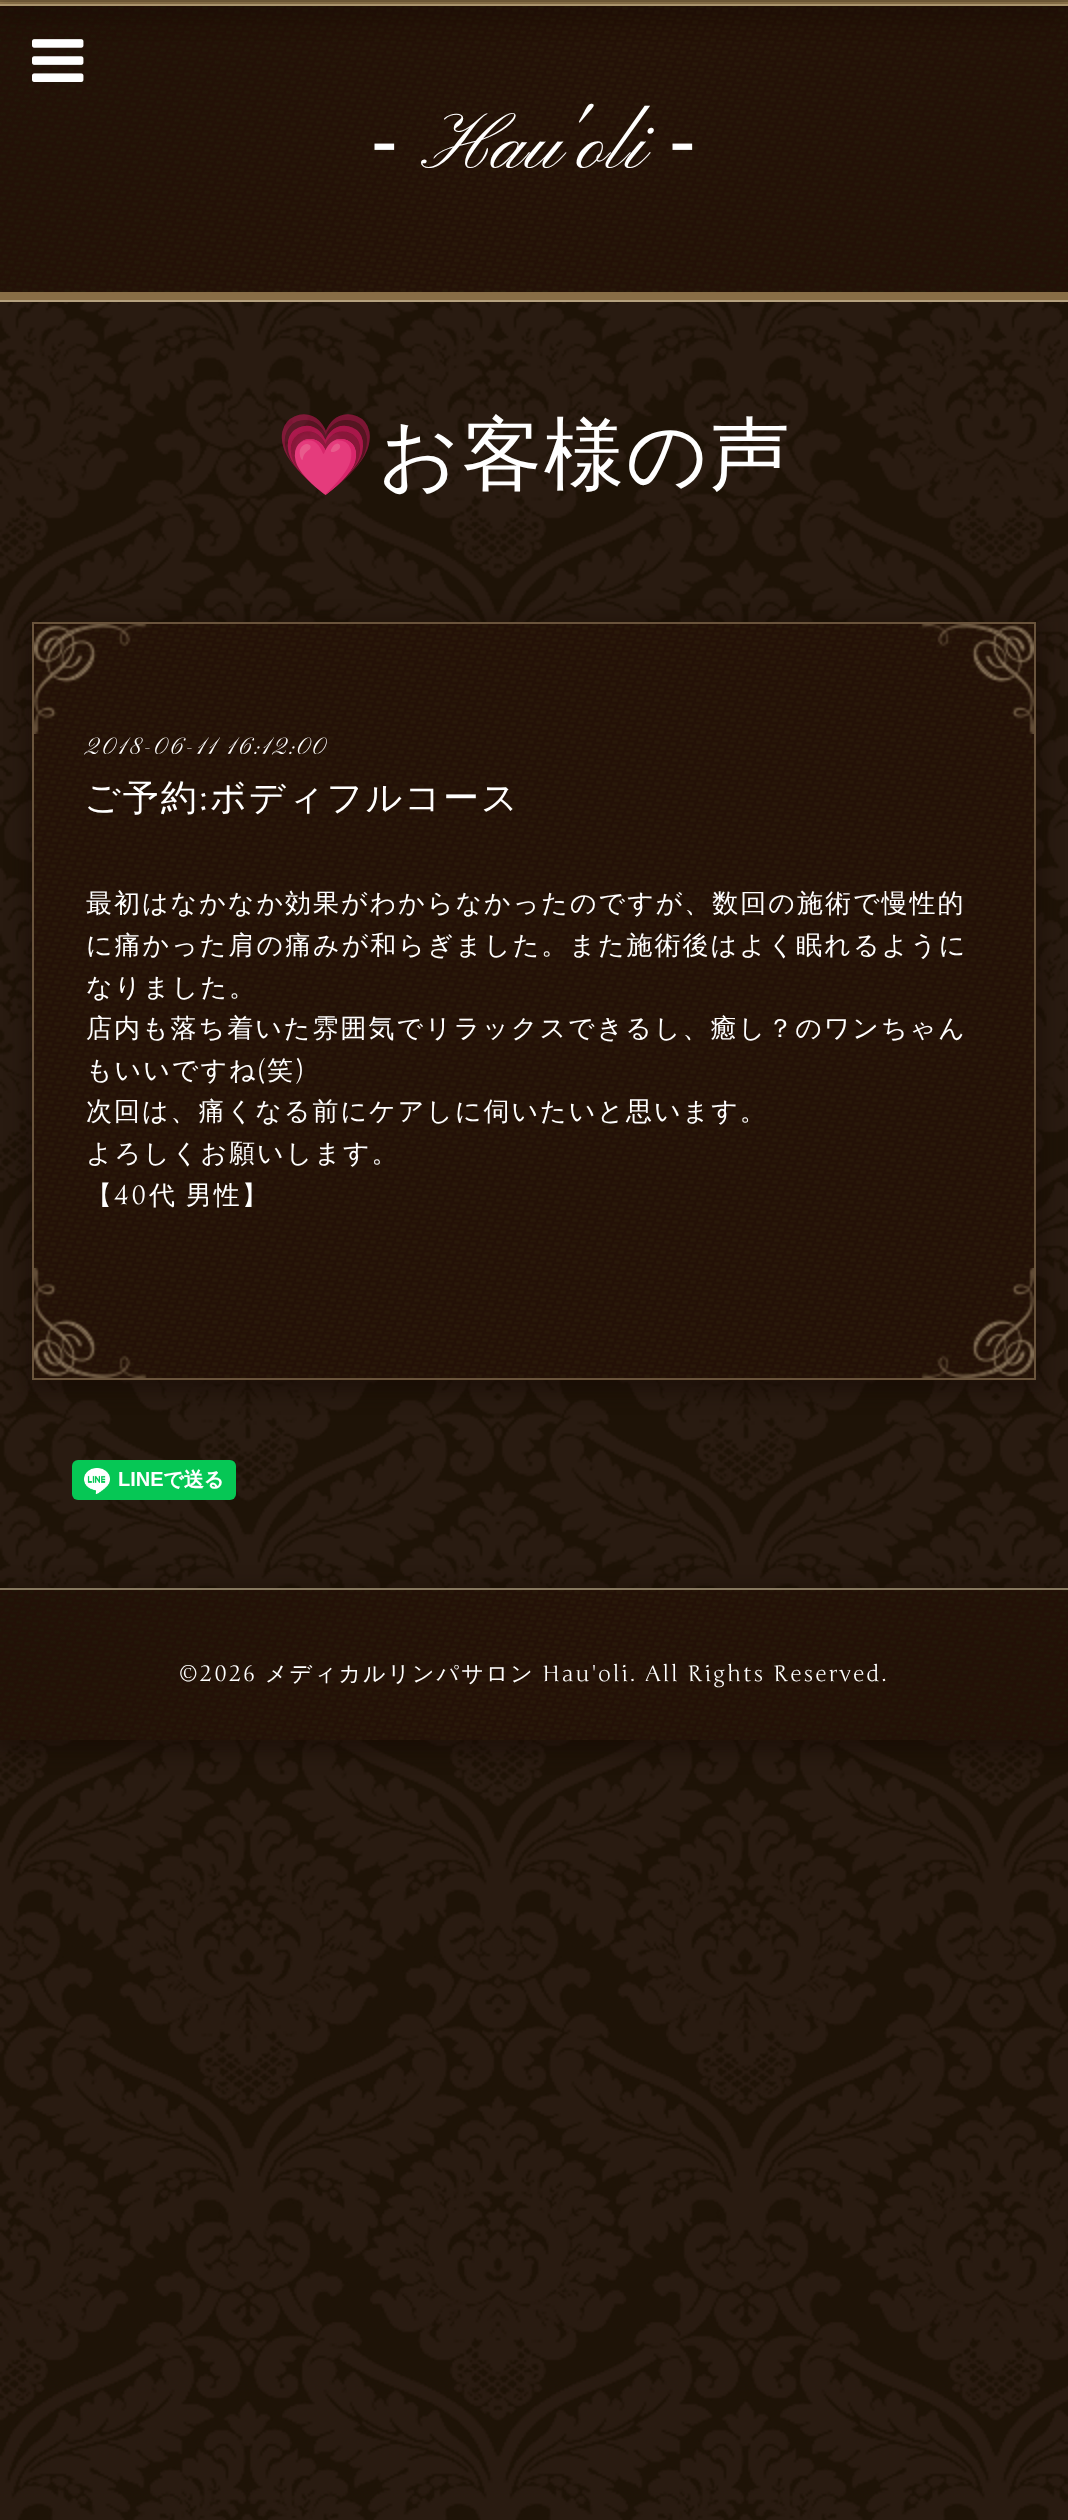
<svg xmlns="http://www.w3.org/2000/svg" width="1068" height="2520">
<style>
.a{font:80px Liberation Sans;letter-spacing:2px;fill:#fff}
.b{font:80px Pinyon Script;letter-spacing:2px;fill:#fff}
.c{font:80px Noto Color Emoji;letter-spacing:2px;fill:#fff}
.d{font:500 80px WenQuanYi Zen Hei;letter-spacing:2px;fill:#fff}
.e{font:24px Pinyon Script;letter-spacing:2px;fill:#fff}
.f{font:500 36px WenQuanYi Zen Hei;letter-spacing:2px;fill:#fff}
.g{font:36px Junge;letter-spacing:2px;fill:#fff}
.h{font:500 26px WenQuanYi Zen Hei;letter-spacing:2px;fill:#fff}
.i{font:26px Junge;letter-spacing:2px;fill:#fff}
.j{font:22px Junge;letter-spacing:2px;fill:#fff}
.k{font:500 22px WenQuanYi Zen Hei;letter-spacing:2px;fill:#fff}
</style>
<rect width="100%" height="100%" fill="#1e1307"/>
<image href="1.png" x="0" y="302" width="1068" height="2218"/>
<image href="2.png" x="0" y="6" width="1068" height="286"/>
<path fill="#7e6741" d="M0 0h1068v2H0z"/>
<path fill="#9e8356" d="M0 2h1068v2H0z"/>
<path fill="#14080280" filter="blur(10px)" d="M-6 4h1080v14H-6z"/>
<path fill="#a9936c" d="M0 4h1068v2H0z"/>
<image href="3.png" x="32" y="39" width="52" height="43"/>
<path fill="#886d46" d="M0 292h1068v8H0z"/>
<path fill="#b4a07e" d="M0 300h1068v2H0z"/>
<path fill="#14080280" filter="blur(10px)" d="M26 622h1016v770H26z"/>
<path fill="#29190a" d="M34 624h1000v754H34z"/>
<image href="4.png" x="34" y="624" width="1000" height="754"/>
<path fill="none" stroke="#6a543c" stroke-width="2" d="M33 623h1002v756H33z"/>
<image href="5.png" x="34" y="624" width="113" height="110"/>
<image href="6.png" x="921" y="624" width="113" height="110"/>
<image href="7.png" x="34" y="1268" width="113" height="110"/>
<image href="8.png" x="921" y="1268" width="113" height="110"/>
<image href="9.png" x="72" y="1460" width="164" height="40"/>
<path fill="#14080280" filter="blur(10px)" d="M-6 1588h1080v164H-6z"/>
<image href="10.png" x="0" y="1590" width="1068" height="150"/>
<path fill="#877960" d="M0 1588h1068v2H0z"/>
<text class="a" x="371" y="168">‐</text>
<text class="b" x="421" y="168">Hau'oli</text>
<text class="a" x="669" y="168">‐</text>
<text class="c" x="276" y="482">💗</text>
<text class="d" x="378" y="482">お客様の声</text>
<text class="e" x="84" y="754">2018-06-11 16:12:00</text>
<text class="f" x="84" y="810">ご予約</text>
<text class="g" x="199" y="810">:</text>
<text class="f" x="210" y="810">ボディフルコース</text>
<text class="h" x="86" y="912">最初はなかなか効果がわからなかったのですが、数回の施術で慢性的</text>
<text class="h" x="86" y="954">に痛かった肩の痛みが和らぎました。また施術後はよく眠れるように</text>
<text class="h" x="86" y="996">なりました。</text>
<text class="h" x="86" y="1037">店内も落ち着いた雰囲気でリラックスできるし、癒し？のワンちゃん</text>
<text class="h" x="86" y="1079">もいいですね</text>
<text class="i" x="258" y="1079">(</text>
<text class="h" x="267" y="1079">笑</text>
<text class="i" x="295" y="1079">)</text>
<text class="h" x="86" y="1120">次回は、痛くなる前にケアしに伺いたいと思います。</text>
<text class="h" x="86" y="1162">よろしくお願いします。</text>
<text class="h" x="86" y="1204">【</text>
<text class="i" x="114" y="1204">40</text>
<text class="h" x="149" y="1204" word-spacing="-1">代 男性】</text>
<text class="j" x="179" y="1681">©2026</text>
<text class="k" x="265" y="1681">メディカルリンパサロン</text>
<text class="j" x="542" y="1681">Hau'oli. All Rights Reserved.</text>
</svg>
